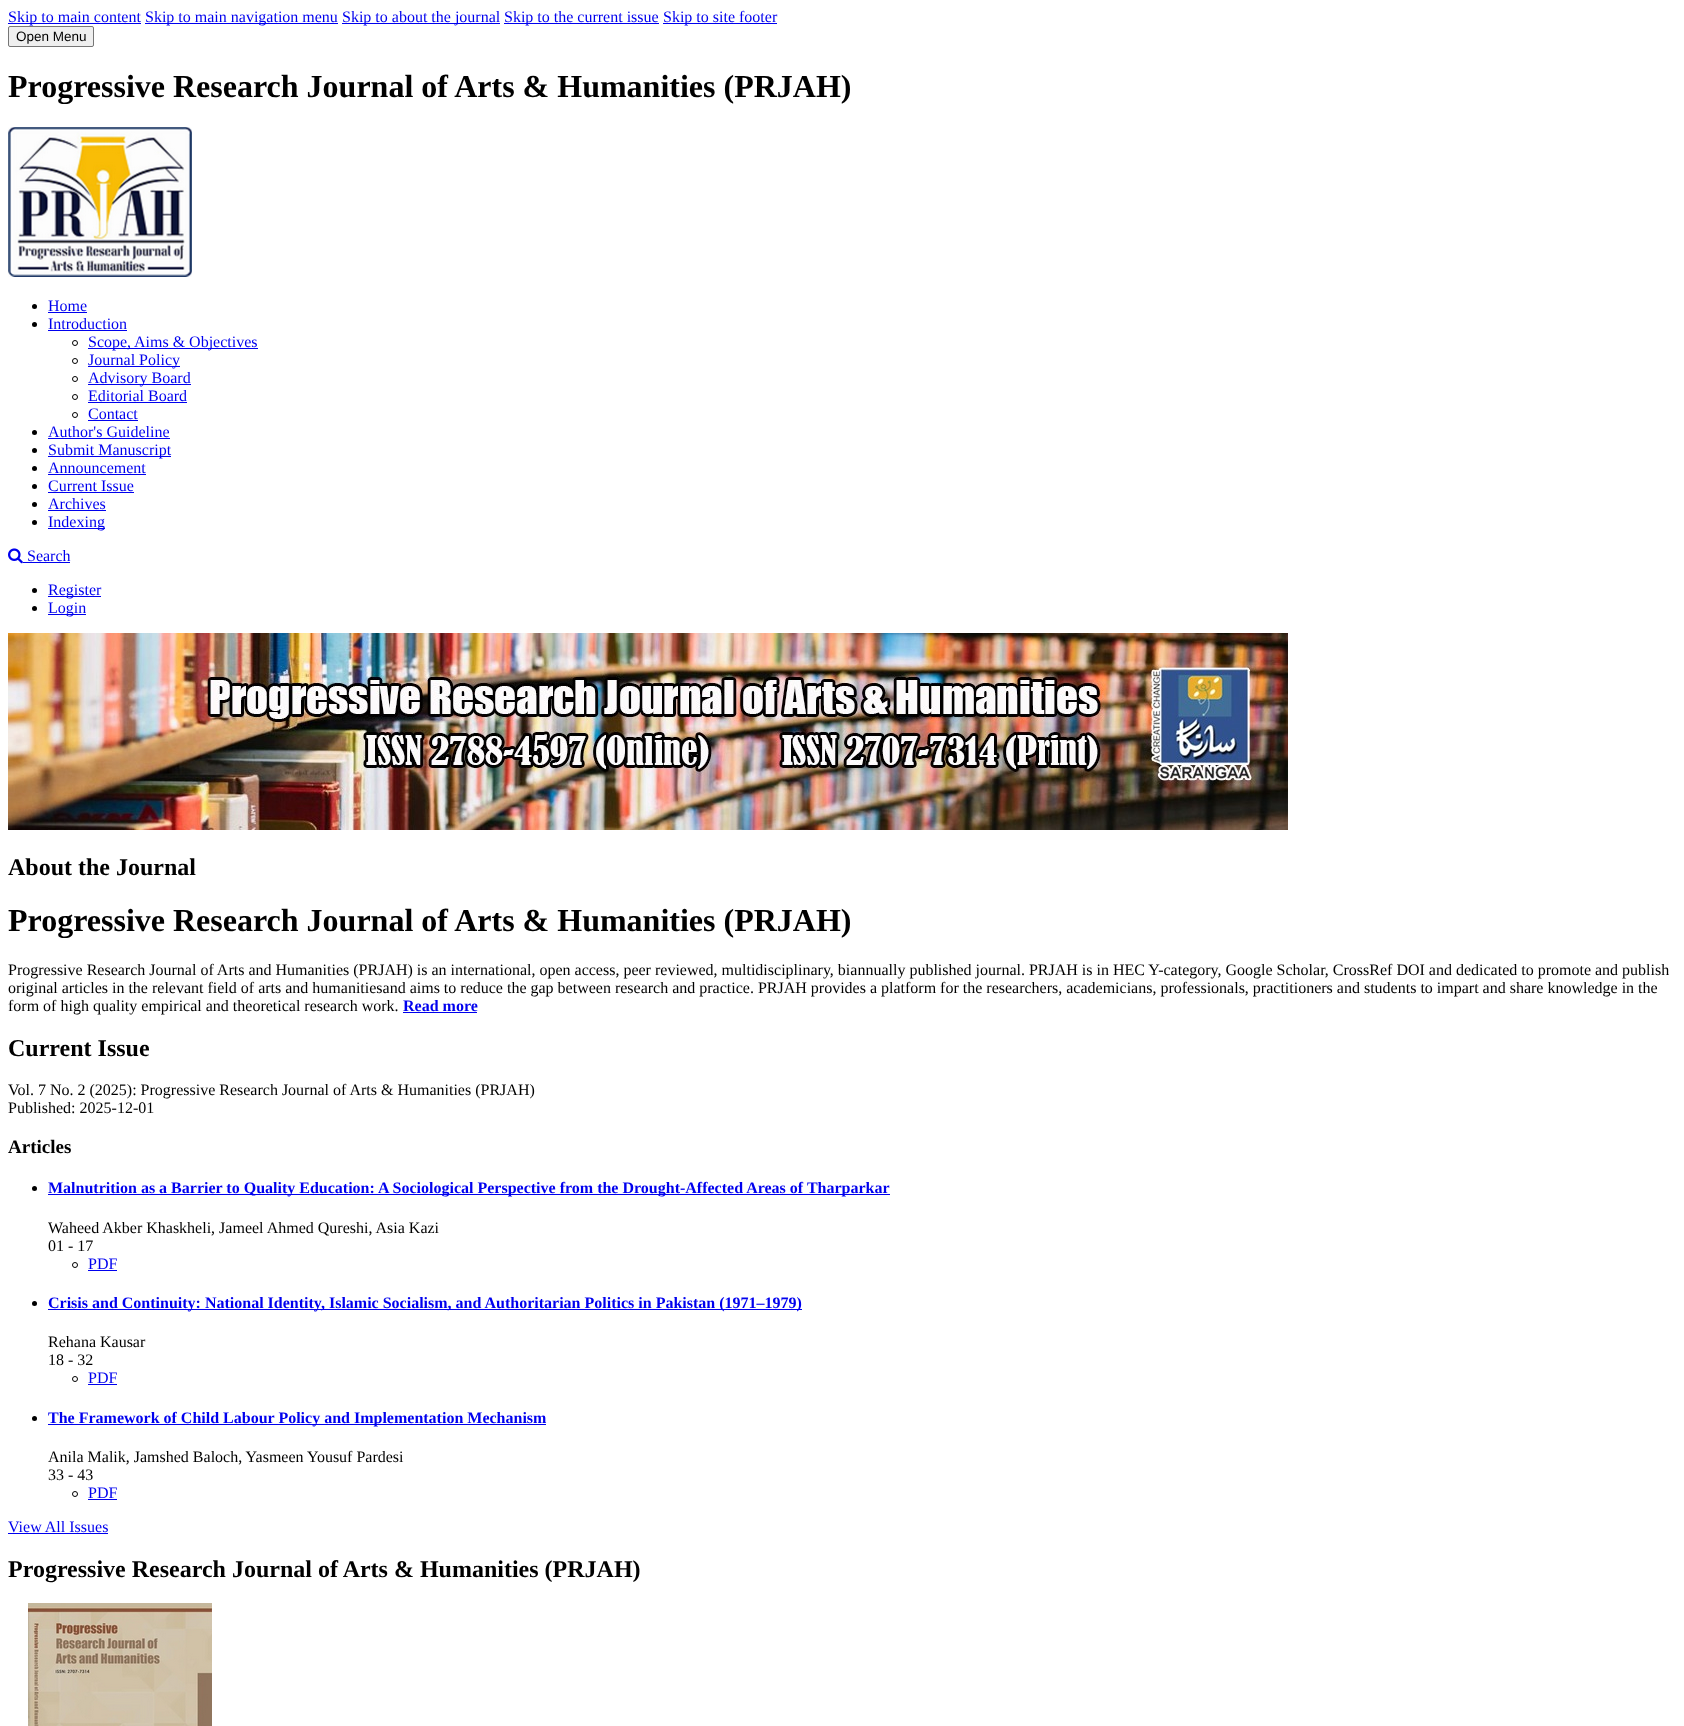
<svg xmlns="http://www.w3.org/2000/svg" width="1684" height="1726">
<style>
.a{font:16px Liberation Serif;fill:#00e}
.b{font:13.5px Liberation Sans;fill:#000}
.c{font:bold 32px Liberation Serif;fill:#000}
.d{font:bold 24px Liberation Serif;fill:#000}
.e{font:16px Liberation Serif;fill:#000}
.f{font:bold 16px Liberation Serif;fill:#00e}
.g{font:bold 19px Liberation Serif;fill:#000}
</style>
<rect width="100%" height="100%" fill="#fff"/>
<path fill="#00e" d="M8 23h133v1H8z"/>
<path fill="#00e" d="M145 23h193v1H145z"/>
<path fill="#00e" d="M342 23h158v1H342z"/>
<path fill="#00e" d="M504 23h155v1H504z"/>
<path fill="#00e" d="M663 23h114v1H663z"/>
<rect fill="#efefef" stroke="#767676" x="8.5" y="26.5" width="85" height="20" rx="1.5"/>
<image href="1.png" x="8" y="127" width="184" height="150"/>
<circle fill="#000" cx="34.5" cy="306.5" r="2.5"/>
<path fill="#00e" d="M48 312h39v1H48z"/>
<circle fill="#000" cx="34.5" cy="324.5" r="2.5"/>
<path fill="#00e" d="M48 330h79v1H48z"/>
<circle fill="none" stroke="#000" cx="75" cy="343" r="2.5"/>
<path fill="#00e" d="M88 348h170v1H88z"/>
<circle fill="none" stroke="#000" cx="75" cy="361" r="2.5"/>
<path fill="#00e" d="M88 366h92v1H88z"/>
<circle fill="none" stroke="#000" cx="75" cy="379" r="2.5"/>
<path fill="#00e" d="M88 384h103v1H88z"/>
<circle fill="none" stroke="#000" cx="75" cy="397" r="2.5"/>
<path fill="#00e" d="M88 402h99v1H88z"/>
<circle fill="none" stroke="#000" cx="75" cy="415" r="2.5"/>
<path fill="#00e" d="M88 420h50v1H88z"/>
<circle fill="#000" cx="34.5" cy="432.5" r="2.5"/>
<path fill="#00e" d="M48 438h122v1H48z"/>
<circle fill="#000" cx="34.5" cy="450.5" r="2.5"/>
<path fill="#00e" d="M48 456h123v1H48z"/>
<circle fill="#000" cx="34.5" cy="468.5" r="2.5"/>
<path fill="#00e" d="M48 474h98v1H48z"/>
<circle fill="#000" cx="34.5" cy="486.5" r="2.5"/>
<path fill="#00e" d="M48 492h86v1H48z"/>
<circle fill="#000" cx="34.5" cy="504.5" r="2.5"/>
<path fill="#00e" d="M48 510h58v1H48z"/>
<circle fill="#000" cx="34.5" cy="522.5" r="2.5"/>
<path fill="#00e" d="M48 528h57v1H48z"/>
<image href="2.png" x="8" y="548" width="15" height="16"/>
<path fill="#00e" d="M23 562h47v1H23z"/>
<circle fill="#000" cx="34.5" cy="590.5" r="2.5"/>
<path fill="#00e" d="M48 596h53v1H48z"/>
<circle fill="#000" cx="34.5" cy="608.5" r="2.5"/>
<path fill="#00e" d="M48 614h38v1H48z"/>
<image href="3.png" x="8" y="633" width="1280" height="197"/>
<path fill="#00e" d="M403 1012h74v1H403z"/>
<circle fill="#000" cx="34.5" cy="1188.5" r="2.5"/>
<path fill="#00e" d="M48 1194h842v1H48z"/>
<circle fill="none" stroke="#000" cx="75" cy="1265" r="2.5"/>
<path fill="#00e" d="M88 1270h29v1H88z"/>
<circle fill="#000" cx="34.5" cy="1303.5" r="2.5"/>
<path fill="#00e" d="M48 1309h754v1H48z"/>
<circle fill="none" stroke="#000" cx="75" cy="1379" r="2.5"/>
<path fill="#00e" d="M88 1384h29v1H88z"/>
<circle fill="#000" cx="34.5" cy="1418.5" r="2.5"/>
<path fill="#00e" d="M48 1424h498v1H48z"/>
<circle fill="none" stroke="#000" cx="75" cy="1494" r="2.5"/>
<path fill="#00e" d="M88 1499h29v1H88z"/>
<path fill="#00e" d="M8 1533h100v1H8z"/>
<image href="4.png" x="28" y="1603" width="184" height="123"/>
<text class="a" x="8" y="22">Skip to main content</text>
<text class="a" x="145" y="22">Skip to main navigation menu</text>
<text class="a" x="342" y="22">Skip to about the journal</text>
<text class="a" x="504" y="22">Skip to the current issue</text>
<text class="a" x="663" y="22">Skip to site footer</text>
<text class="b" x="16" y="41">Open Menu</text>
<text class="c" x="8" y="97">Progressive Research Journal of Arts &amp; Humanities (PRJAH)</text>
<text class="a" x="48" y="311">Home</text>
<text class="a" x="48" y="329">Introduction</text>
<text class="a" x="88" y="347">Scope,</text>
<text class="a" x="134" y="347">Aims &amp; Objectives</text>
<text class="a" x="88" y="365">Journal Policy</text>
<text class="a" x="88" y="383">Advisory Board</text>
<text class="a" x="88" y="401">Editorial Board</text>
<text class="a" x="88" y="419">Contact</text>
<text class="a" x="48" y="437">Author's Guideline</text>
<text class="a" x="48" y="455">Submit Manuscript</text>
<text class="a" x="48" y="473">Announcement</text>
<text class="a" x="48" y="491">Current Issue</text>
<text class="a" x="48" y="509">Archives</text>
<text class="a" x="48" y="527">Indexing</text>
<text class="a" x="27" y="561">Search</text>
<text class="a" x="48" y="595">Register</text>
<text class="a" x="48" y="613">Login</text>
<text class="d" x="8" y="875">About the Journal</text>
<text class="c" x="8" y="931">Progressive Research Journal of Arts &amp; Humanities (PRJAH)</text>
<text class="e" x="8" y="975">Progressive Research Journal of Arts and Humanities (PRJAH) is an international, open access, peer reviewed, multidisciplinary, biannually published journal. PRJAH is in HEC Y-category, Google Scholar, CrossRef DOI and dedicated to promote and publish</text>
<text class="e" x="8" y="993">original articles in the relevant field of arts and humanitiesand aims to reduce the gap between research and practice. PRJAH provides a platform for the researchers, academicians, professionals, practitioners and students to impart and share knowledge in the</text>
<text class="e" x="8" y="1011">form of high quality empirical and theoretical research work.</text>
<text class="f" x="403" y="1011">Read more</text>
<text class="d" x="8" y="1056">Current Issue</text>
<text class="e" x="8" y="1095">Vol. 7 No. 2 (2025): Progressive Research Journal of Arts &amp; Humanities (PRJAH)</text>
<text class="e" x="8" y="1113">Published: 2025-12-01</text>
<text class="g" x="8" y="1153">Articles</text>
<text class="f" x="48" y="1193">Malnutrition as a Barrier to Quality Education: A Sociological Perspective from the Drought-Affected Areas of Tharparkar</text>
<text class="e" x="48" y="1233">Waheed Akber Khaskheli, Jameel Ahmed Qureshi, Asia Kazi</text>
<text class="e" x="48" y="1251">01 - 17</text>
<text class="a" x="88" y="1269">PDF</text>
<text class="f" x="48" y="1308">Crisis and Continuity: National Identity, Islamic Socialism, and Authoritarian Politics in Pakistan (1971–1979)</text>
<text class="e" x="48" y="1347">Rehana Kausar</text>
<text class="e" x="48" y="1365">18 - 32</text>
<text class="a" x="88" y="1383">PDF</text>
<text class="f" x="48" y="1423">The Framework of Child Labour Policy and Implementation Mechanism</text>
<text class="e" x="48" y="1462">Anila Malik, Jamshed Baloch, Yasmeen Yousuf Pardesi</text>
<text class="e" x="48" y="1480">33 - 43</text>
<text class="a" x="88" y="1498">PDF</text>
<text class="a" x="8" y="1532">View All Issues</text>
<text class="d" x="8" y="1577">Progressive Research Journal of Arts &amp; Humanities (PRJAH)</text>
</svg>
